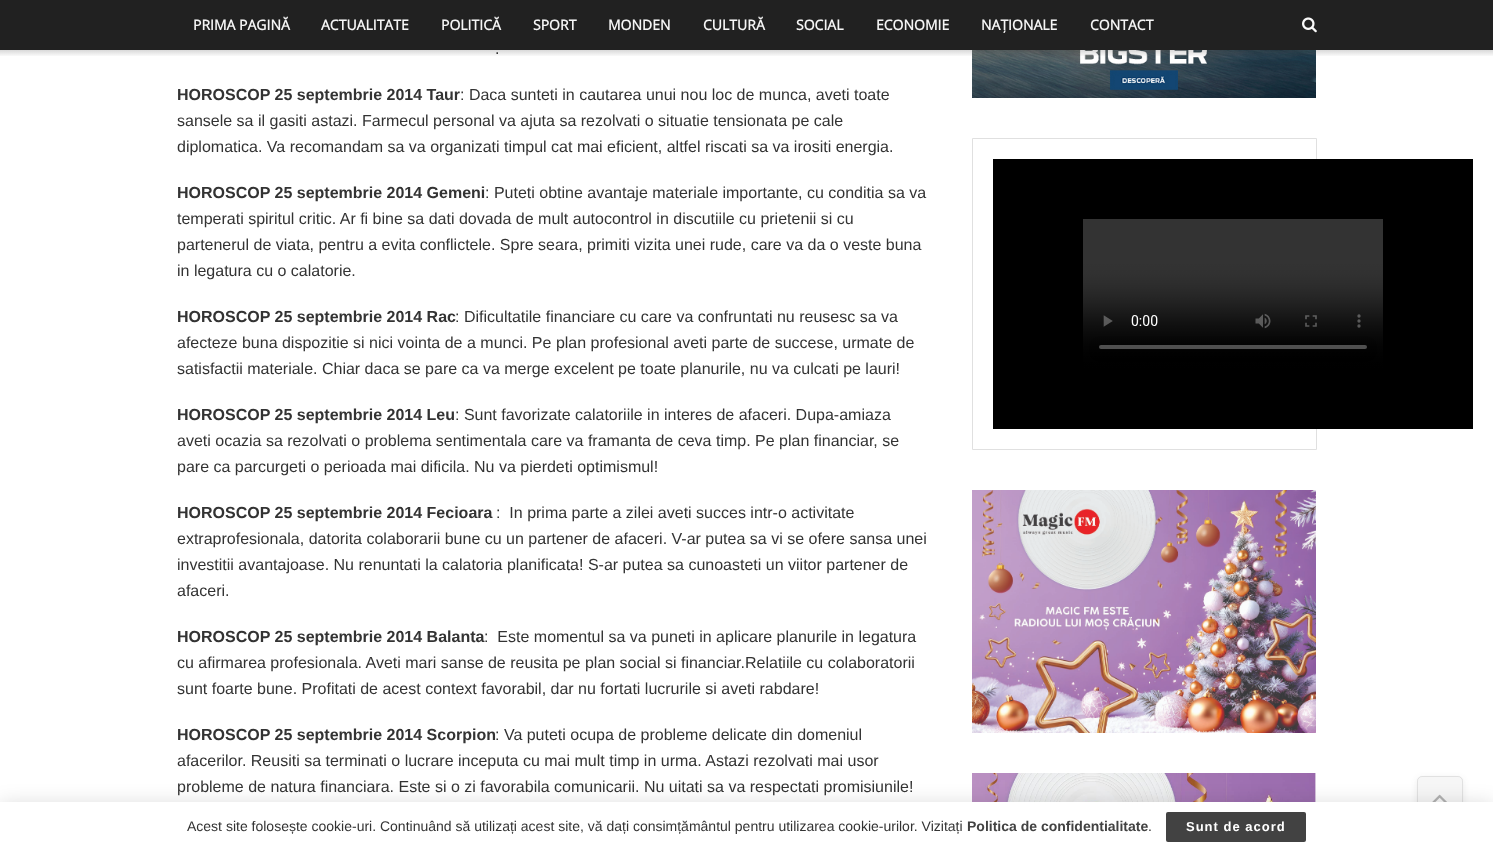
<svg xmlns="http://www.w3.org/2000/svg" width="1493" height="852">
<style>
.a{font:bold 14px Open Sans;fill:#f5f5f5}
.b{font:16px Liberation Sans;fill:#333}
.c{font:bold 16px Liberation Sans;fill:#333}
.d{font:14px Liberation Sans;fill:#333}
.e{font:bold 14px Liberation Sans;fill:#424242}
.f{font:bold 13px Liberation Sans;letter-spacing:1px;fill:#fff}
</style>
<defs>
<linearGradient id="g1" gradientUnits="userSpaceOnUse" x1="747" y1="50" x2="747" y2="57"><stop offset="0" stop-color="#000" stop-opacity="0.15"/><stop offset="1" stop-color="#000" stop-opacity="0"/></linearGradient>
<clipPath id="clip1"><path d="M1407 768h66v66h-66zm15 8h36c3 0 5 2 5 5v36c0 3-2 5-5 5h-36c-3 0-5-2-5-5v-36c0-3 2-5 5-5z" clip-rule="evenodd"/></clipPath>
</defs>
<rect width="100%" height="100%" fill="#fff"/>
<path fill="#212121" d="M0 0h1493v50H0z"/>
<image href="1.png" x="1302" y="17" width="15" height="16"/>
<image href="2.png" x="972" y="50" width="344" height="48"/>
<path fill="url(#g1)" d="M0 50h1493v6H0z"/>
<path fill="none" stroke="#e0e0e0" d="M972.5 138.5h344v311H972.5z"/>
<image href="3.png" x="993" y="159" width="480" height="270"/>
<image href="4.png" x="972" y="490" width="344" height="243"/>
<image href="5.png" x="972" y="773" width="344" height="29"/>
<g clip-path="url(#clip1)">
<rect fill="#3333331a" filter="blur(3px)" x="1417" y="778" width="46" height="46" rx="5"/>
</g>
<rect fill="#c3c3c326" x="1417" y="776" width="46" height="46" rx="5"/>
<rect fill="none" stroke="#3333331c" x="1417.5" y="776.5" width="45" height="45" rx="4.5"/>
<image href="6.png" x="1432" y="794" width="15" height="8"/>
<path fill="#00000026" filter="blur(10px)" d="M0 804h1493v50H0z"/>
<path fill="#00000033" filter="blur(0.5px)" d="M0 802h1493v50H0z"/>
<path fill="#fff" d="M0 802h1493v50H0z"/>
<rect fill="#424242" x="1166" y="812" width="140" height="30" rx="2"/>
<text class="a" x="193" y="30">PRIMA PAGINĂ</text>
<text class="a" x="321" y="30">ACTUALITATE</text>
<text class="a" x="441" y="30">POLITICĂ</text>
<text class="a" x="533" y="30">SPORT</text>
<text class="a" x="608" y="30">MONDEN</text>
<text class="a" x="703" y="30">CULTURĂ</text>
<text class="a" x="796" y="30">SOCIAL</text>
<text class="a" x="876" y="30">ECONOMIE</text>
<text class="a" x="981" y="30">NAȚIONALE</text>
<text class="a" x="1090" y="30">CONTACT</text>
<text class="b" x="495" y="54">.</text>
<text class="c" x="177" y="100">HOROSCOP 25 septembrie 2014 Taur</text>
<text class="b" x="460" y="100">: Daca sunteti in cautarea unui nou loc de munca, aveti toate</text>
<text class="b" x="177" y="126">sansele sa il gasiti astazi. Farmecul personal va ajuta sa rezolvati o situatie tensionata pe cale</text>
<text class="b" x="177" y="152">diplomatica. Va recomandam sa va organizati timpul cat mai eficient, altfel riscati sa va irositi energia.</text>
<text class="c" x="177" y="198">HOROSCOP 25 septembrie 2014 Gemeni</text>
<text class="b" x="485" y="198">: Puteti obtine avantaje materiale importante, cu conditia sa va</text>
<text class="b" x="177" y="224">temperati spiritul critic. Ar fi bine sa dati dovada de mult autocontrol in discutiile cu prietenii si cu</text>
<text class="b" x="177" y="250">partenerul de viata, pentru a evita conflictele. Spre seara, primiti vizita unei rude, care va da o veste buna</text>
<text class="b" x="177" y="276">in legatura cu o calatorie.</text>
<text class="c" x="177" y="322">HOROSCOP 25 septembrie 2014 Rac</text>
<text class="b" x="455" y="322">: Dificultatile financiare cu care va confruntati nu reusesc sa va</text>
<text class="b" x="177" y="348">afecteze buna dispozitie si nici vointa de a munci. Pe plan profesional aveti parte de succese, urmate de</text>
<text class="b" x="177" y="374">satisfactii materiale. Chiar daca se pare ca va merge excelent pe toate planurile, nu va culcati pe lauri!</text>
<text class="c" x="177" y="420">HOROSCOP 25 septembrie 2014 Leu</text>
<text class="b" x="455" y="420">: Sunt favorizate calatoriile in interes de afaceri. Dupa-amiaza</text>
<text class="b" x="177" y="446">aveti ocazia sa rezolvati o problema sentimentala care va framanta de ceva timp. Pe plan financiar, se</text>
<text class="b" x="177" y="472">pare ca parcurgeti o perioada mai dificila. Nu va pierdeti optimismul!</text>
<text class="c" x="177" y="518">HOROSCOP 25 septembrie 2014 Fecioara</text>
<text class="b" xml:space="preserve" x="496" y="518">:  In prima parte a zilei aveti succes intr-o activitate</text>
<text class="b" x="177" y="544">extraprofesionala, datorita colaborarii bune cu un partener de afaceri. V-ar putea sa vi se ofere sansa unei</text>
<text class="b" x="177" y="570">investitii avantajoase. Nu renuntati la calatoria planificata! S-ar putea sa cunoasteti un viitor partener de</text>
<text class="b" x="177" y="596">afaceri.</text>
<text class="c" x="177" y="642">HOROSCOP 25 septembrie 2014 Balanta</text>
<text class="b" xml:space="preserve" x="484" y="642">:  Este momentul sa va puneti in aplicare planurile in legatura</text>
<text class="b" x="177" y="668">cu afirmarea profesionala. Aveti mari sanse de reusita pe plan social si financiar.Relatiile cu colaboratorii</text>
<text class="b" x="177" y="694">sunt foarte bune. Profitati de acest context favorabil, dar nu fortati lucrurile si aveti rabdare!</text>
<text class="c" x="177" y="740">HOROSCOP 25 septembrie 2014 Scorpion</text>
<text class="b" x="495" y="740">: Va puteti ocupa de probleme delicate din domeniul</text>
<text class="b" x="177" y="766">afacerilor. Reusiti sa terminati o lucrare inceputa cu mai mult timp in urma. Astazi rezolvati mai usor</text>
<text class="b" x="177" y="792">probleme de natura financiara. Este si o zi favorabila comunicarii. Nu uitati sa va respectati promisiunile!</text>
<text class="d" x="187" y="831">Acest site folosește cookie-uri. Continuând să utilizați acest site, vă dați consimțământul pentru utilizarea cookie-urilor. Vizitați</text>
<text class="e" x="967" y="831">Politica de confidentialitate</text>
<text class="d" x="1148" y="831">.</text>
<text class="f" x="1186" y="831">Sunt de acord</text>
</svg>
